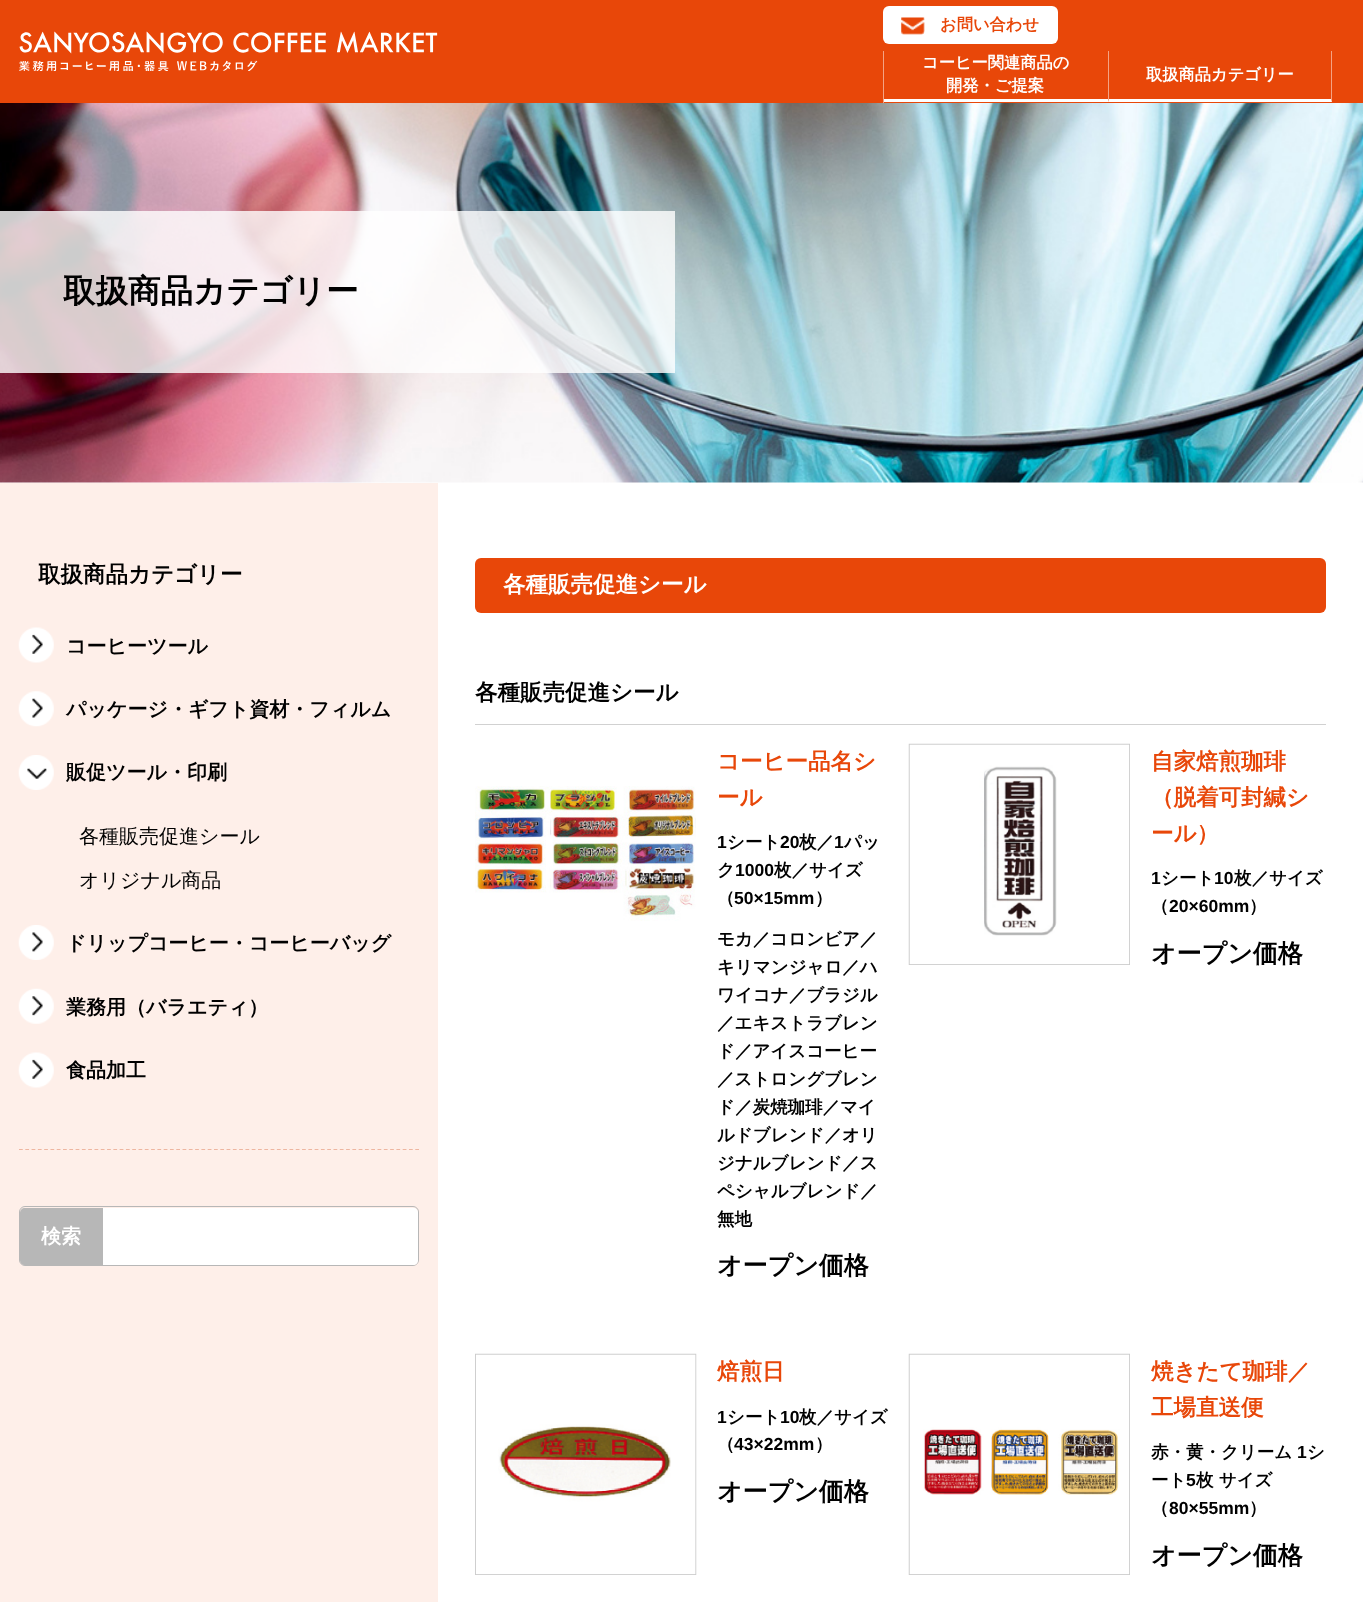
<svg xmlns="http://www.w3.org/2000/svg" width="1363" height="1602">
<style>
.a{font:bold 16.25px WenQuanYi Zen Hei;fill:#e84709}
.b{font:bold 16.25px WenQuanYi Zen Hei;fill:#fff}
.c{font:bold 32.5px WenQuanYi Zen Hei;fill:#000}
.d{font:bold 22.5px WenQuanYi Zen Hei;fill:#000}
.e{font:bold 20px WenQuanYi Zen Hei;fill:#000}
.f{font:500 20px WenQuanYi Zen Hei;fill:#000}
.g{font:bold 20px WenQuanYi Zen Hei;fill:#fff}
.h{font:bold 22.5px WenQuanYi Zen Hei;fill:#fff}
.i{font:bold 22.5px WenQuanYi Zen Hei;fill:#e84709}
.j{font:bold 17.5px Liberation Sans;fill:#000}
.k{font:bold 17.5px WenQuanYi Zen Hei;fill:#000}
.l{font:bold 25px WenQuanYi Zen Hei;fill:#000}
</style>
<rect width="100%" height="100%" fill="#fff"/>
<path fill="#e84709" d="M0 0h1363v103H0z"/>
<image href="1.png" x="19" y="31" width="419" height="40"/>
<rect fill="#fff" x="883" y="6" width="175" height="38" rx="6"/>
<image href="2.png" x="901" y="17" width="24" height="18"/>
<path fill="#f4a384" d="M883 51h1v52H883z"/>
<path fill="#f4a384" d="M1109 51v51l-1-3v-48z"/>
<path fill="#fff" d="M1109 102h-225v-3h224z"/>
<path fill="#f4a384" d="M1332 51v51l-1-3v-48z"/>
<path fill="#fff" d="M1332 102h-223v-3h222z"/>
<image href="3.png" x="0" y="103" width="1363" height="380"/>
<path fill="#ffffffcc" d="M0 211h675v162H0z"/>
<path fill="#feefe9" d="M0 483h438v1119H0z"/>
<path fill="none" stroke="#eeb6a0" stroke-width="1.2" stroke-dasharray="3.75 2.54" d="M19 1149.5h400"/>
<image href="4.png" x="18" y="627" width="36" height="36"/>
<image href="5.png" x="18" y="691" width="36" height="36"/>
<image href="6.png" x="18" y="755" width="36" height="35"/>
<image href="7.png" x="18" y="925" width="36" height="35"/>
<image href="8.png" x="18" y="988" width="36" height="36"/>
<image href="4.png" x="18" y="1052" width="36" height="36"/>
<rect fill="none" stroke="#b7b7b7" x="19.5" y="1206.5" width="399" height="59" rx="5.5"/>
<path fill="#b7b7b7" d="M25 1208h78v57h-78c-3 0-5-2-5-5v-47c0-3 2-5 5-5z"/>
<path fill="#fff" d="M103 1208h310c3 0 5 2 5 5v47c0 3-2 5-5 5h-310z"/>
<rect fill="#e84709" x="475" y="558" width="851" height="55" rx="6"/>
<path fill="#d1d1d1" d="M475 724h851v1H475z"/>
<image href="9.png" x="475" y="786" width="221" height="135"/>
<image href="10.png" x="908" y="743" width="222" height="222"/>
<image href="11.png" x="475" y="1353" width="222" height="222"/>
<image href="12.png" x="908" y="1353" width="222" height="222"/>
<text class="a" x="940" y="30">お問い合わせ</text>
<text class="b" x="922" y="68">コーヒー関連商品の</text>
<text class="b" x="946" y="91">開発・ご提案</text>
<text class="b" x="1146" y="80">取扱商品カテゴリー</text>
<text class="c" x="63" y="302">取扱商品カテゴリー</text>
<text class="d" x="38" y="582">取扱商品カテゴリー</text>
<text class="e" x="66" y="653">コーヒーツール</text>
<text class="e" x="66" y="716">パッケージ・ギフト資材・フィルム</text>
<text class="e" x="66" y="779">販促ツール・印刷</text>
<text class="f" x="79" y="843">各種販売促進シール</text>
<text class="f" x="79" y="887">オリジナル商品</text>
<text class="e" x="66" y="950">ドリップコーヒー・コーヒーバッグ</text>
<text class="e" x="66" y="1014">業務用（バラエティ）</text>
<text class="e" x="66" y="1077">食品加工</text>
<text class="g" x="41" y="1243">検索</text>
<text class="h" x="503" y="592">各種販売促進シール</text>
<text class="d" x="475" y="700">各種販売促進シール</text>
<text class="i" x="717" y="769">コーヒー品名シ</text>
<text class="i" x="717" y="805">ール</text>
<text class="j" x="717" y="848">1</text>
<text class="k" x="727" y="848">シート</text>
<text class="j" x="780" y="848">20</text>
<text class="k" x="799" y="848">枚／</text>
<text class="j" x="834" y="848">1</text>
<text class="k" x="844" y="848">パッ</text>
<text class="k" x="717" y="876">ク</text>
<text class="j" x="735" y="876">1000</text>
<text class="k" x="774" y="876">枚／サイズ</text>
<text class="k" x="717" y="904">（</text>
<text class="j" x="734" y="904">50×15mm</text>
<text class="k" x="815" y="904">）</text>
<text class="k" x="717" y="945">モカ／コロンビア／</text>
<text class="k" x="717" y="973">キリマンジャロ／ハ</text>
<text class="k" x="717" y="1001">ワイコナ／ブラジル</text>
<text class="k" x="717" y="1029">／エキストラブレン</text>
<text class="k" x="717" y="1057">ド／アイスコーヒー</text>
<text class="k" x="717" y="1085">／ストロングブレン</text>
<text class="k" x="717" y="1113">ド／炭焼珈琲／マイ</text>
<text class="k" x="717" y="1141">ルドブレンド／オリ</text>
<text class="k" x="717" y="1169">ジナルブレンド／ス</text>
<text class="k" x="717" y="1197">ペシャルブレンド／</text>
<text class="k" x="717" y="1225">無地</text>
<text class="l" x="717" y="1274">オープン価格</text>
<text class="i" x="1151" y="769">自家焙煎珈琲</text>
<text class="i" x="1151" y="805">（脱着可封緘シ</text>
<text class="i" x="1151" y="841">ール）</text>
<text class="j" x="1151" y="884">1</text>
<text class="k" x="1161" y="884">シート</text>
<text class="j" x="1214" y="884">10</text>
<text class="k" x="1234" y="884">枚／サイズ</text>
<text class="k" x="1151" y="912">（</text>
<text class="j" x="1169" y="912">20×60mm</text>
<text class="k" x="1249" y="912">）</text>
<text class="l" x="1151" y="962">オープン価格</text>
<text class="i" x="717" y="1379">焙煎日</text>
<text class="j" x="717" y="1423">1</text>
<text class="k" x="727" y="1423">シート</text>
<text class="j" x="780" y="1423">10</text>
<text class="k" x="799" y="1423">枚／サイズ</text>
<text class="k" x="717" y="1450">（</text>
<text class="j" x="734" y="1450">43×22mm</text>
<text class="k" x="815" y="1450">）</text>
<text class="l" x="717" y="1500">オープン価格</text>
<text class="i" x="1151" y="1379">焼きたて珈琲／</text>
<text class="i" x="1151" y="1415">工場直送便</text>
<text class="k" x="1151" y="1458">赤・黄・クリーム</text>
<text class="j" x="1297" y="1458">1</text>
<text class="k" x="1307" y="1458">シ</text>
<text class="k" x="1151" y="1486">ート</text>
<text class="j" x="1186" y="1486">5</text>
<text class="k" x="1196" y="1486">枚 サイズ</text>
<text class="k" x="1151" y="1514">（</text>
<text class="j" x="1169" y="1514">80×55mm</text>
<text class="k" x="1249" y="1514">）</text>
<text class="l" x="1151" y="1564">オープン価格</text>
</svg>
